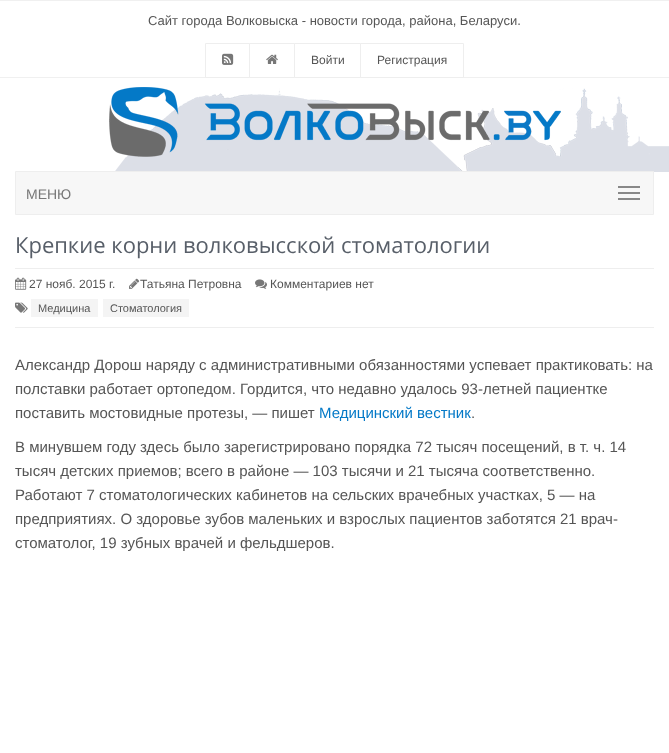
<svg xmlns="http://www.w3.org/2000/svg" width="669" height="753">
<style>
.a{font:13px Liberation Sans;fill:#555}
.b{font:12px Liberation Sans;fill:#555}
.c{font:14px Liberation Sans;fill:#777}
.d{font:22px Open Sans;fill:#585f69}
.e{font:11px Liberation Sans;fill:#555}
.f{font:15px Liberation Sans;fill:#555}
.g{font:15px Liberation Sans;fill:#0479c7}
</style>
<rect width="100%" height="100%" fill="#fff"/>
<path fill="#f0f0f0" d="M0 0h669v1H0z"/>
<path fill="#f0f0f0" d="M0 77h669v1H0z"/>
<path fill="none" stroke="#eee" d="M205.5 43.5h44v34H205.5z"/>
<image href="1.png" x="222" y="53" width="12" height="12"/>
<path fill="none" stroke="#eee" d="M249.5 43.5h45v34H249.5z"/>
<image href="2.png" x="266" y="54" width="12" height="10"/>
<path fill="none" stroke="#eee" d="M294.5 43.5h66v34H294.5z"/>
<path fill="none" stroke="#eee" d="M360.5 43.5h103v34H360.5z"/>
<image href="3.png" x="115" y="88" width="554" height="84"/>
<image href="4.png" x="109" y="87" width="452" height="70"/>
<path fill="#f7f7f7" stroke="#eee" d="M15.5 171.5h638v43H15.5z"/>
<path fill="#888" d="M618 186h22v2H618z"/>
<path fill="#888" d="M618 192h22v2H618z"/>
<path fill="#888" d="M618 198h22v2H618z"/>
<path fill="#eee" d="M15 268h639v1H15z"/>
<path fill="#eee" d="M15 327h639v1H15z"/>
<image href="5.png" x="15" y="277" width="12" height="13"/>
<image href="6.png" x="129" y="278" width="11" height="11"/>
<image href="7.png" x="255" y="279" width="12" height="10"/>
<image href="8.png" x="15" y="302" width="13" height="11"/>
<path fill="#f4f4f4" d="M31 299h67v18H31z"/>
<path fill="#f4f4f4" d="M103 299h86v18H103z"/>
<text class="a" x="148" y="25">Сайт города Волковыска - новости города, района, Беларуси.</text>
<text class="b" x="311" y="64">Войти</text>
<text class="b" x="377" y="64">Регистрация</text>
<text class="c" x="26" y="199">МЕНЮ</text>
<text class="d" x="15" y="253">Крепкие корни волковысской стоматологии</text>
<text class="b" x="29" y="288">27 нояб. 2015 г.</text>
<text class="b" x="140" y="288">Татьяна Петровна</text>
<text class="b" x="270" y="288">Комментариев нет</text>
<text class="e" x="38" y="312">Медицина</text>
<text class="e" x="110" y="312">Стоматология</text>
<text class="f" x="15" y="370">Александр Дорош наряду с административными обязанностями успевает практиковать: на</text>
<text class="f" x="15" y="394">полставки работает ортопедом. Гордится, что недавно удалось 93-летней пациентке</text>
<text class="f" x="15" y="418">поставить мостовидные протезы, — пишет</text>
<text class="g" x="319" y="418">Медицинский вестник</text>
<text class="f" x="471" y="418">.</text>
<text class="f" x="15" y="452">В минувшем году здесь было зарегистрировано порядка 72 тысяч посещений, в т. ч. 14</text>
<text class="f" x="15" y="476">тысяч детских приемов; всего в районе — 103 тысячи и 21 тысяча соответственно.</text>
<text class="f" x="15" y="500">Работают 7 стоматологических кабинетов на сельских врачебных участках, 5 — на</text>
<text class="f" x="15" y="524">предприятиях. О здоровье зубов маленьких и взрослых пациентов заботятся 21 врач-</text>
<text class="f" x="15" y="548">стоматолог, 19 зубных врачей и фельдшеров.</text>
</svg>
